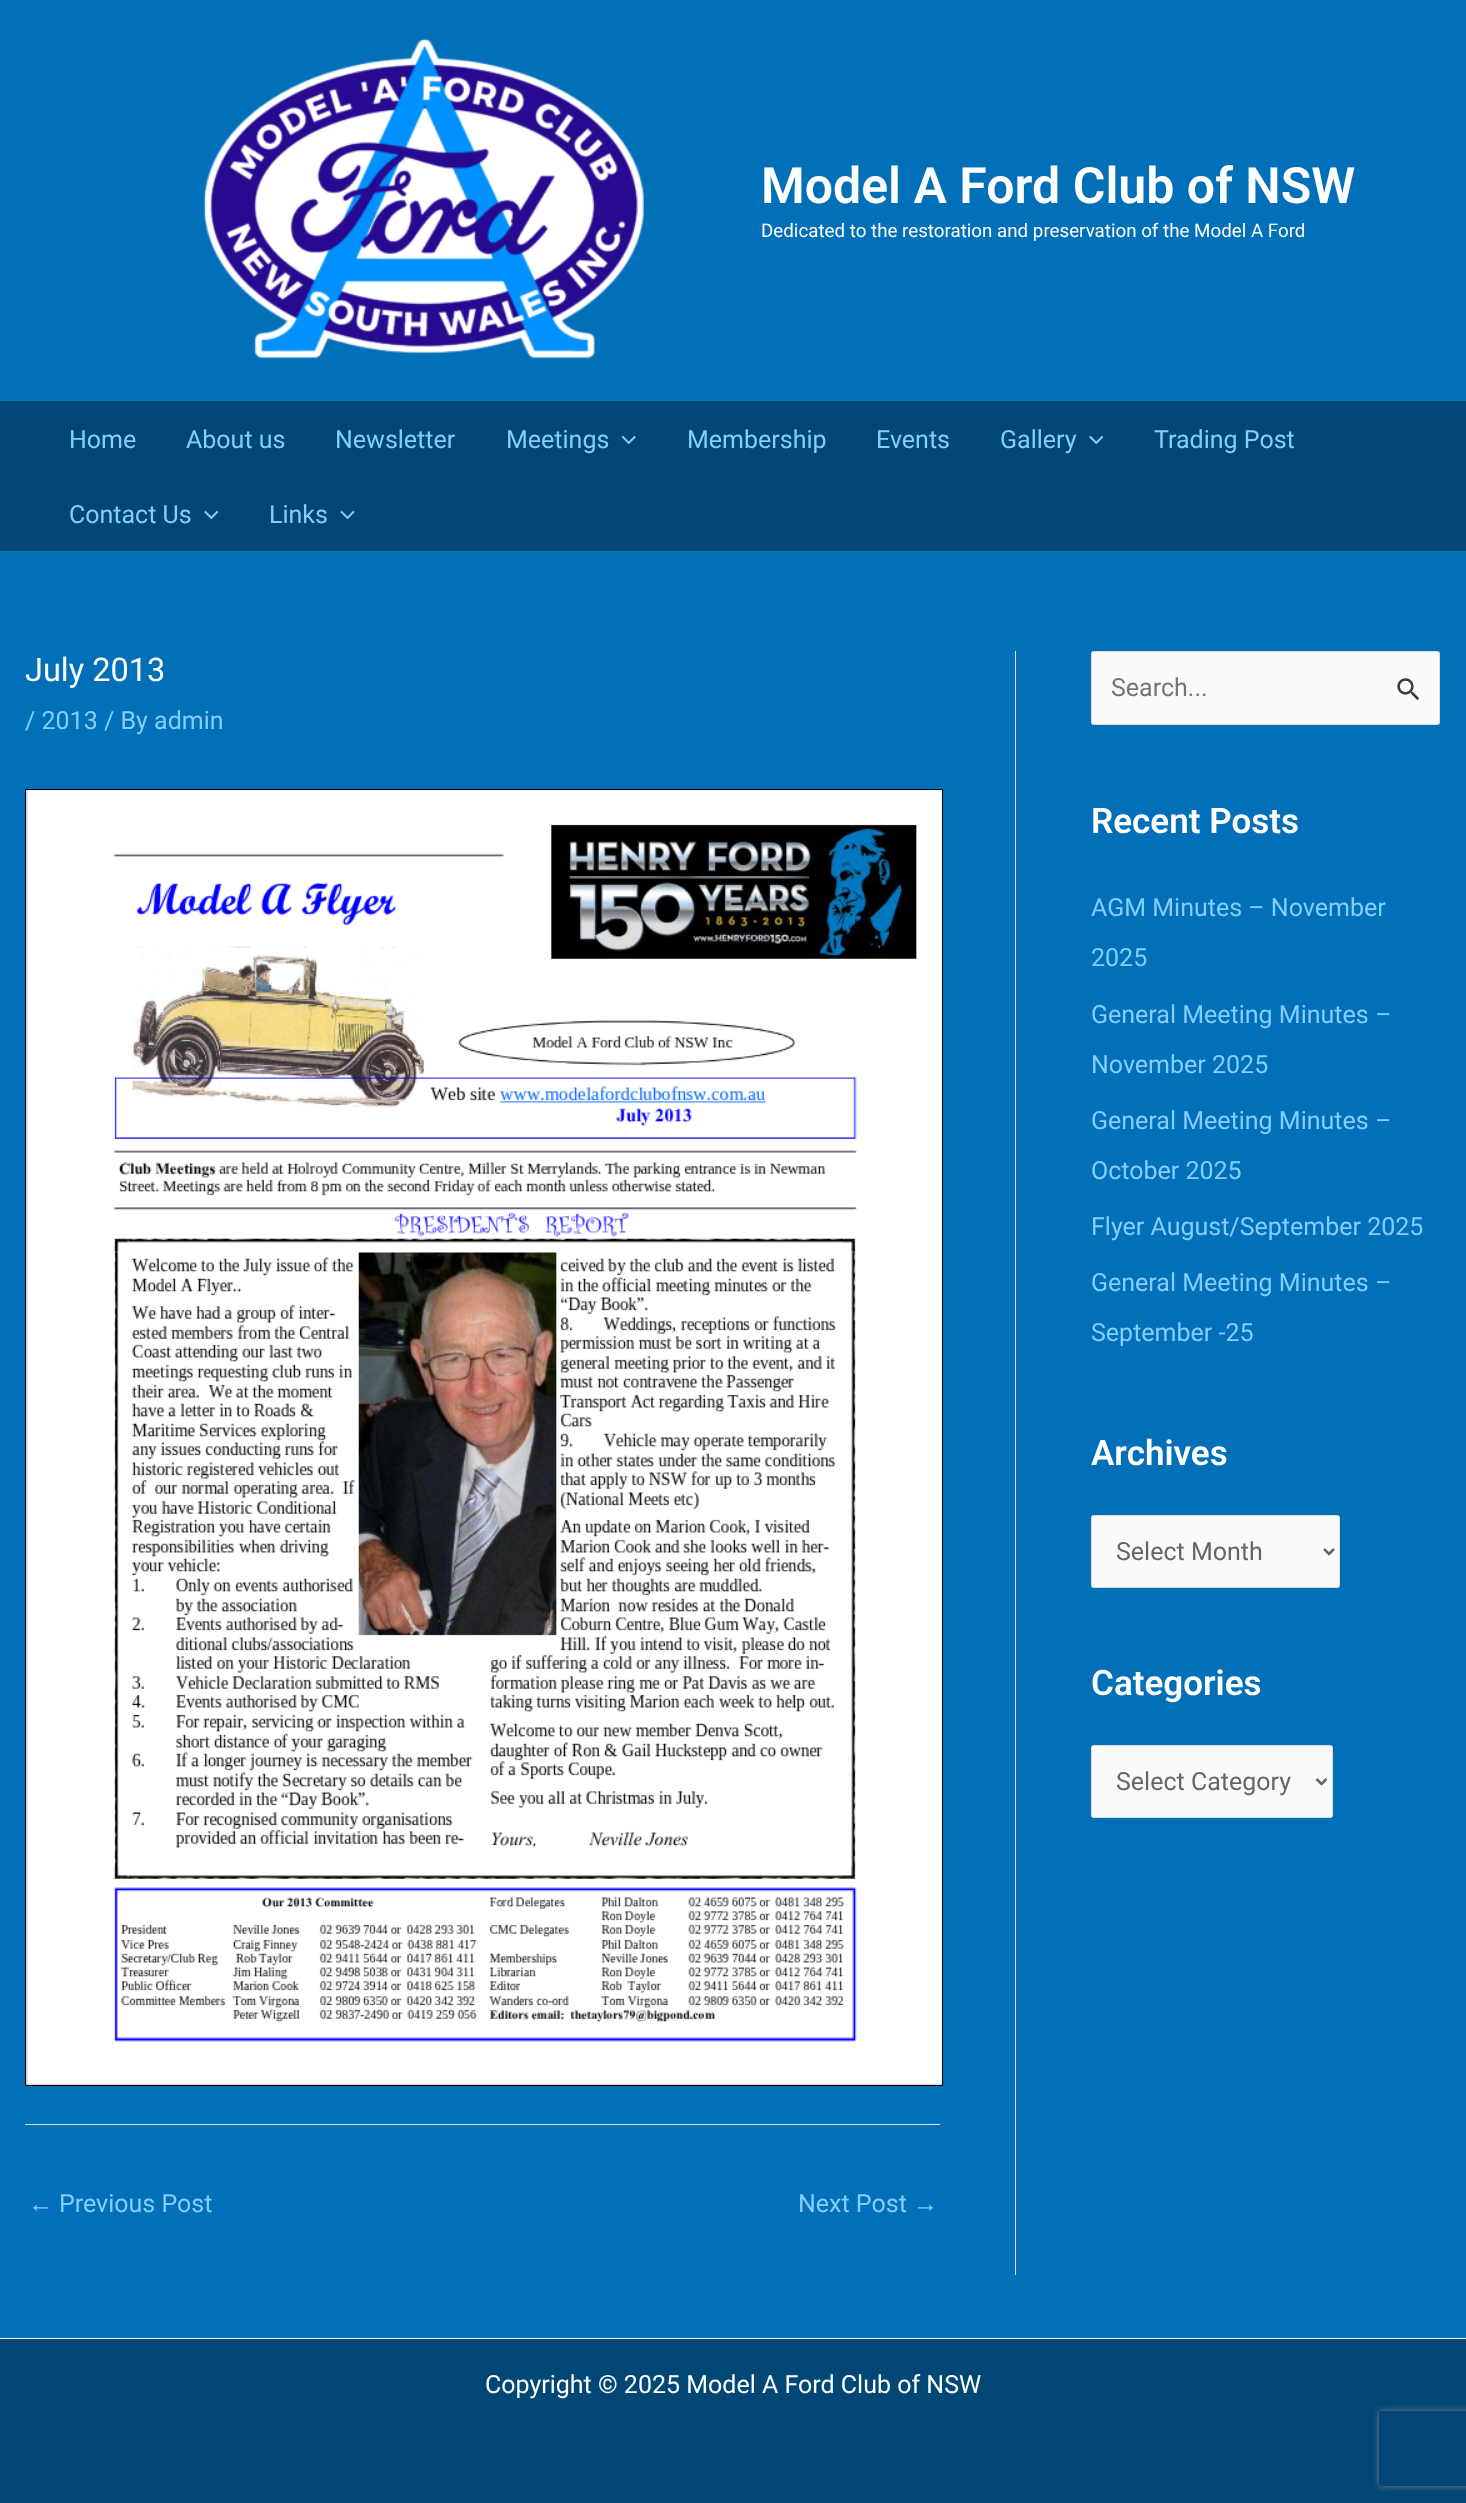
<svg xmlns="http://www.w3.org/2000/svg" width="1466" height="2503">
<style>
.a{font:600 50px Roboto;fill:#fff}
.b{font:18.75px Roboto;fill:#fff}
.c{font:25px Roboto;fill:#84ceff}
.d{font:32.5px Roboto;fill:#fff}
.e{font:25px Liberation Sans;fill:#84ceff}
.f{font:25px Roboto;fill:#757575}
.g{font:600 35px Roboto;fill:#fff}
.h{font:25px Roboto;fill:#666}
.i{font:25px Roboto;fill:#fff}
</style>
<defs>
<clipPath id="clip1"><path d="M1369 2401h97v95h-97zm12.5 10h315c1.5 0 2.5 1 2.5 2.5v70c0 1.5-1 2.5-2.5 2.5h-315c-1.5 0-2.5-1-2.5-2.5v-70c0-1.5 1-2.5 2.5-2.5z" clip-rule="evenodd"/></clipPath>
</defs>
<rect width="100%" height="100%" fill="#0170b9"/>
<image href="1.png" x="203" y="38" width="441" height="321"/>
<path fill="#014776" d="M0 401h1466v150H0z"/>
<image href="2.png" x="621" y="435" width="15" height="10"/>
<image href="3.png" x="1089" y="435" width="15" height="10"/>
<image href="3.png" x="204" y="510" width="15" height="10"/>
<image href="4.png" x="340" y="510" width="15" height="10"/>
<path fill="#d3d3d3" stroke="#000" d="M25.5 789.5h917v1296H25.5z"/>
<image href="5.png" x="27" y="790" width="915" height="1294"/>
<path fill="#ddd" d="M25 2124h915v1H25z"/>
<path fill="#ddd" d="M1015 651h1v1624H1015z"/>
<rect fill="#fafafa" stroke="#ddd" x="1091.5" y="651.5" width="348" height="73" rx="2"/>
<image href="6.png" x="1397" y="678" width="22" height="23"/>
<rect fill="#fafafa" stroke="#ddd" x="1091.5" y="1515.5" width="248" height="72" rx="2"/>
<path fill="none" stroke="#666" stroke-width="2.5" d="M1324 1549l5 5l5-5"/>
<rect fill="#fafafa" stroke="#ddd" x="1091.5" y="1745.5" width="241" height="72" rx="2"/>
<path fill="none" stroke="#666" stroke-width="2.5" d="M1316.5 1779l5 5l5-5"/>
<path fill="#014776" d="M0 2339h1466v164H0z"/>
<path fill="#f2f5f7" d="M0 2338h1466v1H0z"/>
<g clip-path="url(#clip1)">
<rect fill="#808080" filter="blur(3px)" x="1379" y="2411" width="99" height="75" rx="2.5"/>
</g>
<text class="a" x="761" y="203">Model A Ford Club of NSW</text>
<text class="b" x="761" y="237">Dedicated to the restoration and preservation of the Model A Ford</text>
<text class="c" x="69" y="448">Home</text>
<text class="c" x="186" y="448">About us</text>
<text class="c" x="335" y="448">Newsletter</text>
<text class="c" x="506" y="448">Meetings</text>
<text class="c" x="687" y="448">Membership</text>
<text class="c" x="876" y="448">Events</text>
<text class="c" x="1000" y="448">Gallery</text>
<text class="c" x="1154" y="448">Trading Post</text>
<text class="c" x="69" y="523">Contact Us</text>
<text class="c" x="269" y="523">Links</text>
<text class="d" x="25" y="681">July 2013</text>
<text class="c" x="25" y="729">/ 2013 / By admin</text>
<text class="e" x="28" y="2212">←</text>
<text class="c" x="59" y="2212">Previous Post</text>
<text class="c" x="798" y="2212">Next Post</text>
<text class="e" x="913" y="2212">→</text>
<text class="f" x="1111" y="696">Search...</text>
<text class="g" x="1091" y="833">Recent Posts</text>
<text class="c" x="1091" y="916">AGM Minutes – November</text>
<text class="c" x="1091" y="966">2025</text>
<text class="c" x="1091" y="1023">General Meeting Minutes –</text>
<text class="c" x="1091" y="1073">November 2025</text>
<text class="c" x="1091" y="1129">General Meeting Minutes –</text>
<text class="c" x="1091" y="1179">October 2025</text>
<text class="c" x="1091" y="1235">Flyer August/September 2025</text>
<text class="c" x="1091" y="1291">General Meeting Minutes –</text>
<text class="c" x="1091" y="1341">September -25</text>
<text class="g" x="1091" y="1465">Archives</text>
<text class="h" x="1116" y="1560">Select Month</text>
<text class="g" x="1091" y="1695">Categories</text>
<text class="h" x="1116" y="1790">Select Category</text>
<text class="i" x="485" y="2393">Copyright © 2025 Model A Ford Club of NSW</text>
</svg>
